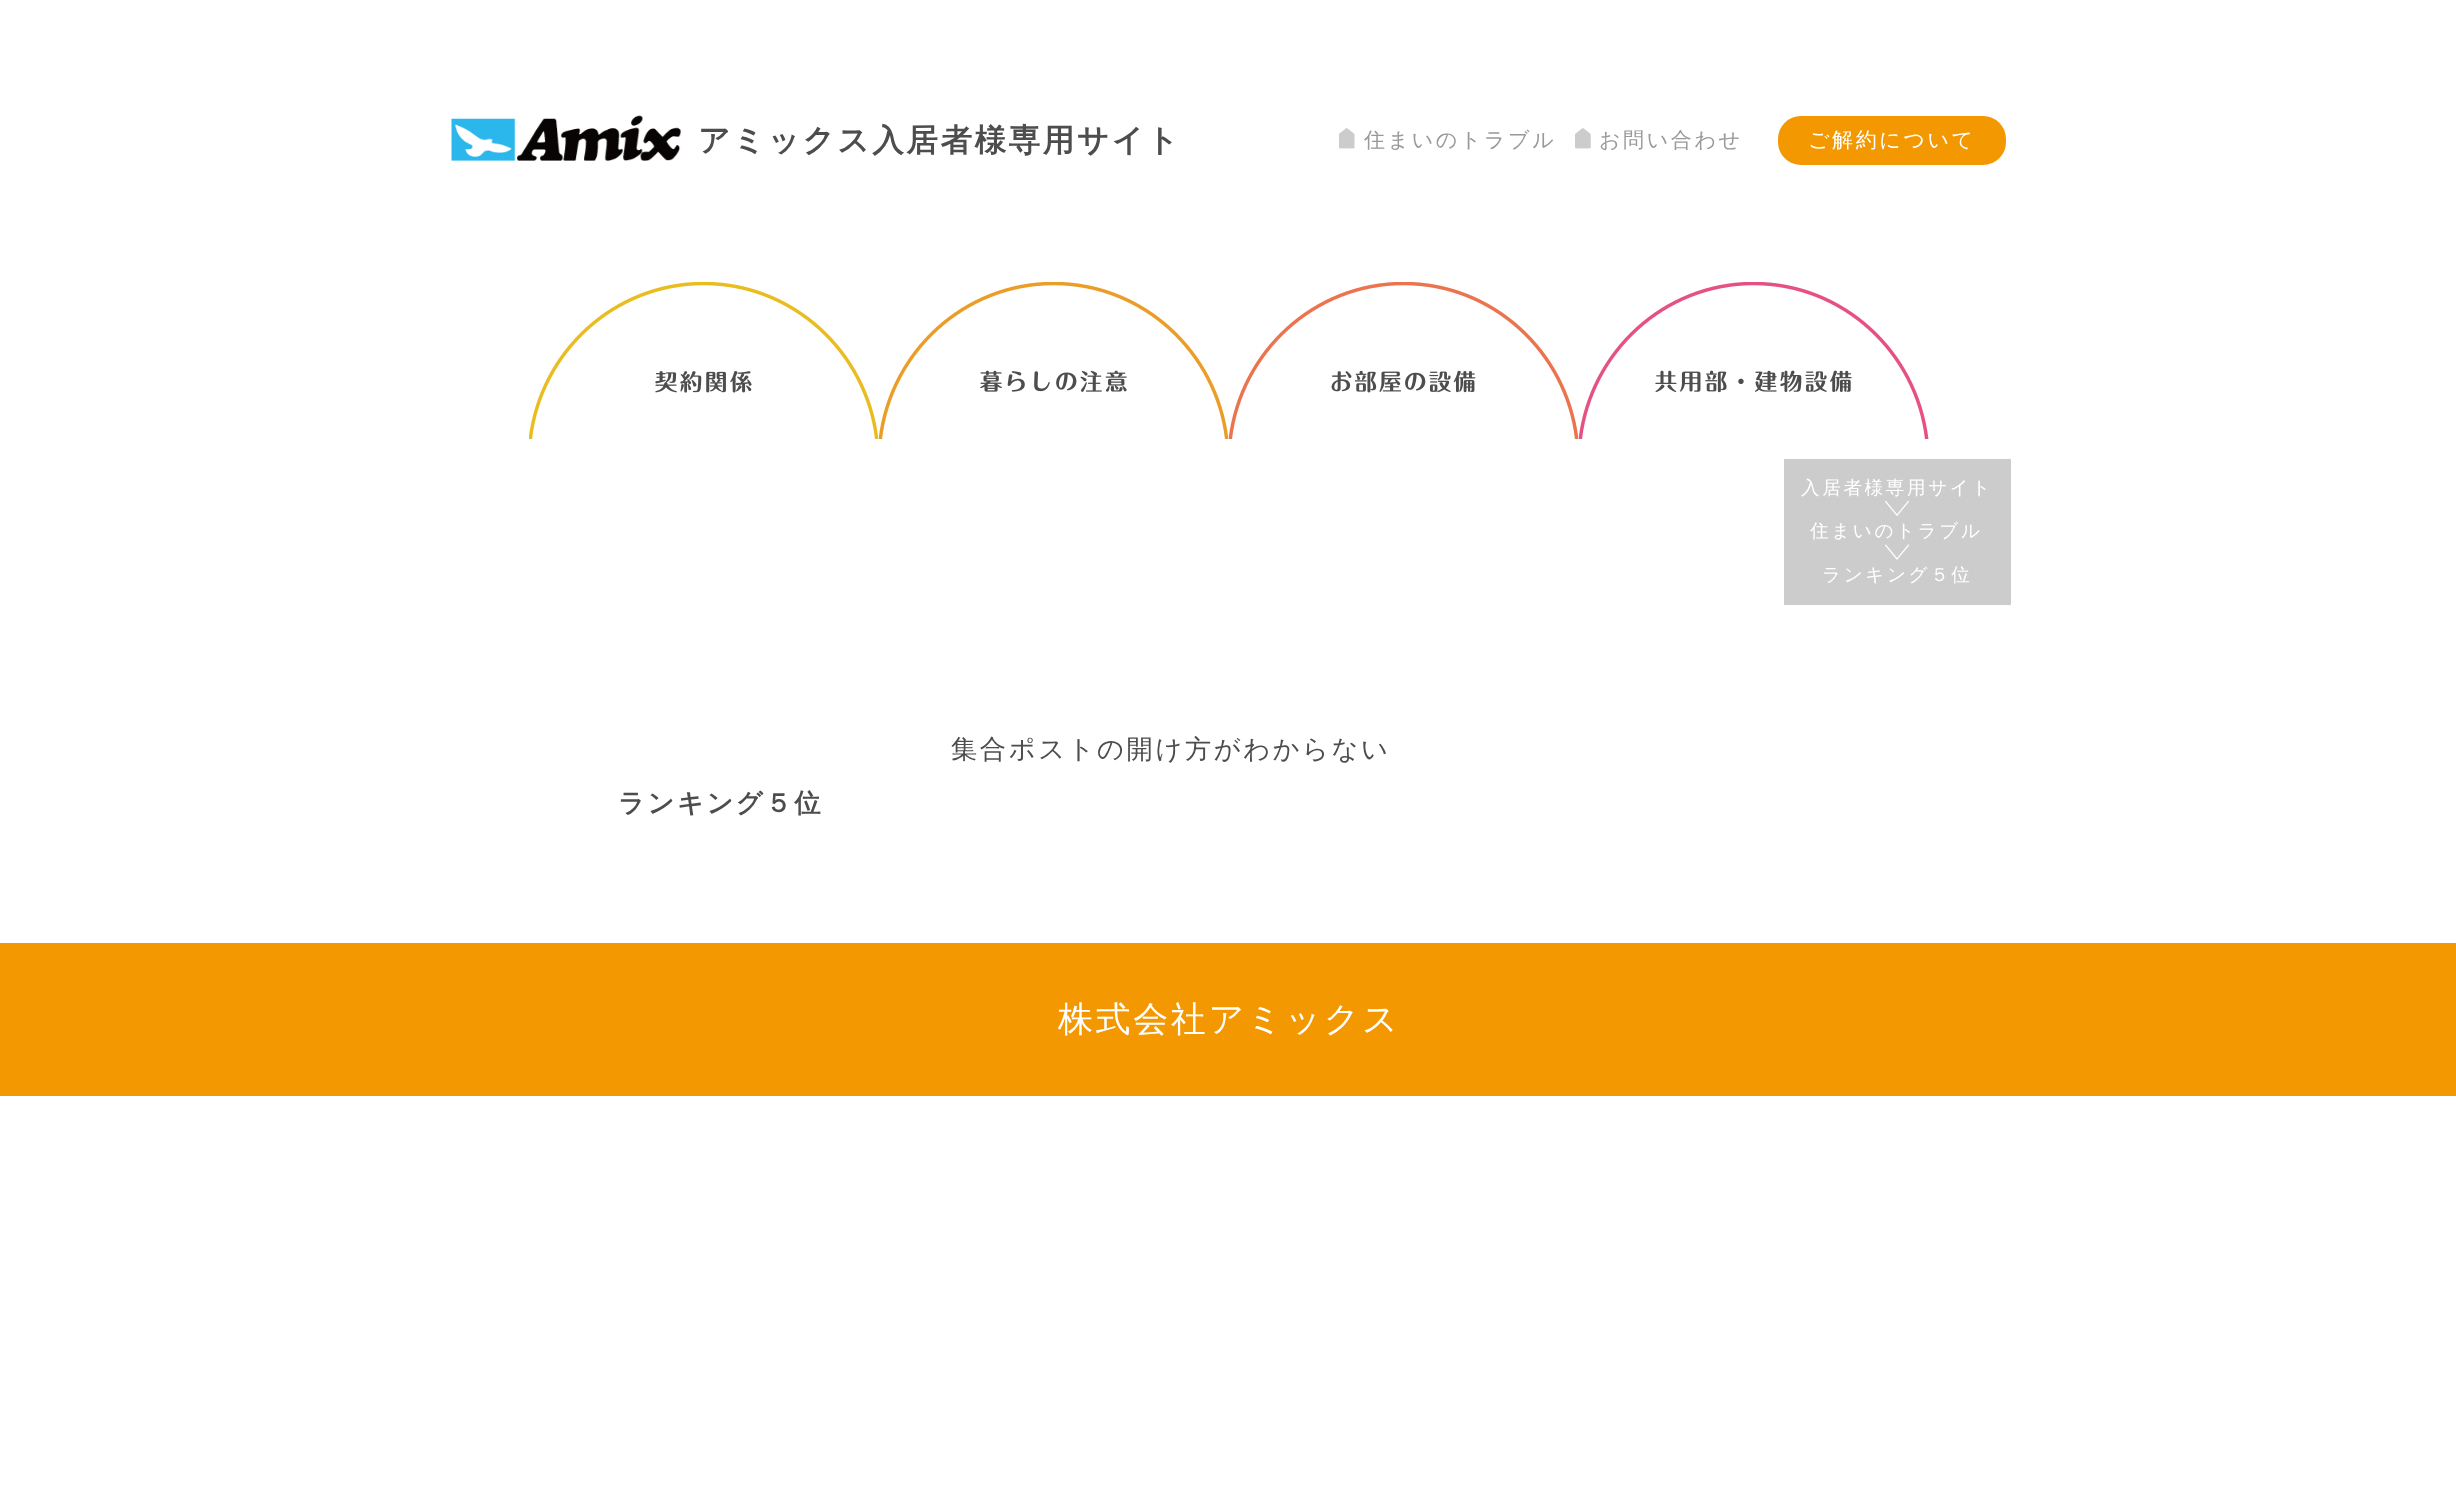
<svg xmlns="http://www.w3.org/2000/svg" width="2456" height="1512">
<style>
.a{font:bold 31.5px WenQuanYi Zen Hei;letter-spacing:2.6px;fill:#4d4d4d}
.b{font:500 21px WenQuanYi Zen Hei;letter-spacing:2.6px;fill:#999}
.c{font:500 21px WenQuanYi Zen Hei;letter-spacing:2.6px;fill:#fff}
.d{font:500 18.6px WenQuanYi Zen Hei;letter-spacing:2.6px;fill:#fff}
.e{font:500 26.25px WenQuanYi Zen Hei;letter-spacing:2.6px;fill:#4d4d4d}
.f{font:bold 26.25px WenQuanYi Zen Hei;letter-spacing:2.6px;fill:#4d4d4d}
.g{font:500 35px WenQuanYi Zen Hei;letter-spacing:2.6px;fill:#fff}
</style>
<rect width="100%" height="100%" fill="#fff"/>
<image href="1.png" x="451" y="115" width="230" height="46"/>
<image href="2.png" x="1339" y="128" width="16" height="21"/>
<image href="3.png" x="1575" y="128" width="16" height="21"/>
<rect fill="#f39800" stroke="#f39800" stroke-width="2" x="1779" y="117" width="226" height="47" rx="22"/>
<image href="4.png" x="529" y="282" width="350" height="157"/>
<image href="5.png" x="879" y="282" width="350" height="157"/>
<image href="6.png" x="1229" y="282" width="350" height="157"/>
<image href="7.png" x="1579" y="282" width="350" height="157"/>
<path fill="#ccc" d="M1784 459h227v146H1784z"/>
<image href="8.png" x="1885" y="501" width="24" height="15"/>
<image href="9.png" x="1885" y="544" width="24" height="16"/>
<path fill="#f39800" d="M0 943h2456v153H0z"/>
<text class="a" x="698" y="151">アミックス入居者様専用サイト</text>
<text class="b" x="1364" y="147">住まいのトラブル</text>
<text class="b" x="1599" y="147">お問い合わせ</text>
<text class="c" x="1808" y="147">ご解約について</text>
<text class="d" x="1801" y="494">入居者様専用サイト</text>
<text class="d" x="1810" y="537">住まいのトラブル</text>
<text class="d" x="1822" y="581">ランキング５位</text>
<text class="e" x="951" y="758">集合ポストの開け方がわからない</text>
<text class="f" x="618" y="812">ランキング５位</text>
<text class="g" x="1058" y="1031">株式会社アミックス</text>
</svg>
